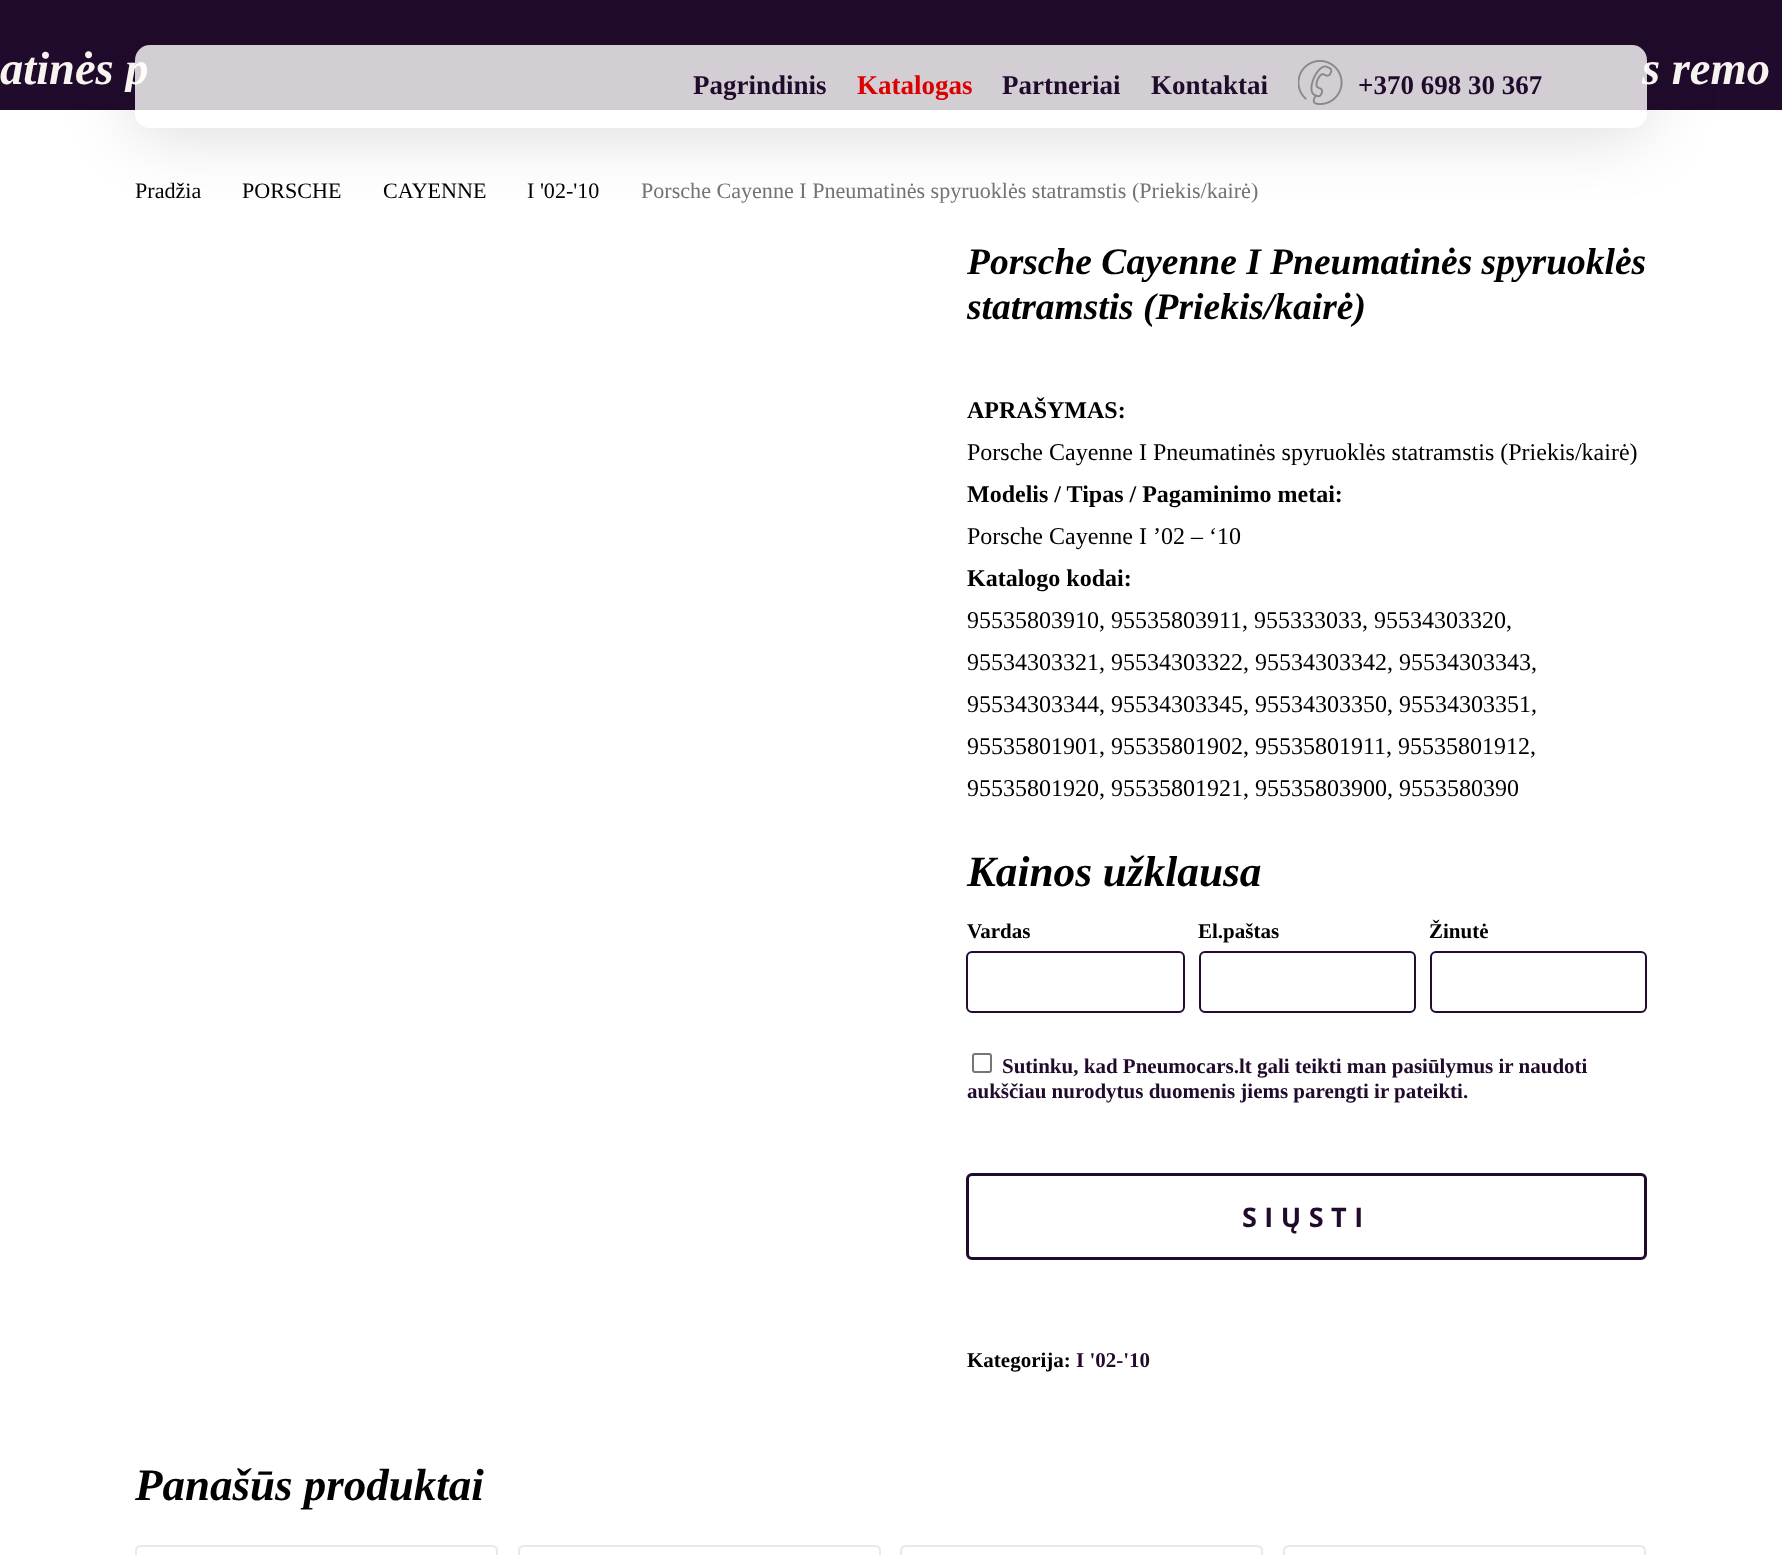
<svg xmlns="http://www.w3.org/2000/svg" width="1782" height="1555">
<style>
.a{font:italic bold 46.5px Liberation Serif;fill:#f7f3ef}
.b{font:22.1px Liberation Serif;fill:#000}
.c{font:22.1px Liberation Serif;fill:#737373}
.d{font:italic bold 37.5px Liberation Serif;fill:#000}
.e{font:bold 24px Liberation Serif;fill:#000}
.f{font:24px Liberation Serif;fill:#000}
.g{font:italic bold 43.25px Liberation Serif;fill:#000}
.h{font:bold 21px Liberation Serif;fill:#000}
.i{font:bold 21px Liberation Serif;fill:#210b2c}
.j{font:bold 27px Open Sans;letter-spacing:7.5px;fill:#210b2c}
.k{font:italic bold 45px Liberation Serif;fill:#000}
.l{font:bold 27px Liberation Serif;fill:#210b2c}
.m{font:bold 27px Liberation Serif;fill:#d00}
</style>
<defs>
<clipPath id="clip1"><path d="M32 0h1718v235h-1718zm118 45h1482c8.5 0 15 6.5 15 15v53c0 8.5-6.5 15-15 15h-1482c-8.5 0-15-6.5-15-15v-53c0-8.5 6.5-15 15-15z" clip-rule="evenodd"/></clipPath>
<clipPath id="clip2"><path d="M0 45h1782v47H0z"/></clipPath>
</defs>
<rect width="100%" height="100%" fill="#fff"/>
<path fill="#210b2c" d="M0 0h1782v110H0z"/>
<rect fill="none" stroke="#230c33" stroke-width="2" x="967" y="952" width="217" height="60" rx="5"/>
<rect fill="none" stroke="#230c33" stroke-width="2" x="1200" y="952" width="215" height="60" rx="5"/>
<rect fill="none" stroke="#230c33" stroke-width="2" x="1431" y="952" width="215" height="60" rx="5"/>
<rect fill="none" stroke="#767676" stroke-width="2" x="973" y="1054" width="18" height="18" rx="2"/>
<rect fill="none" stroke="#210b2c" stroke-width="3" x="967.5" y="1174.5" width="678" height="84" rx="4.5"/>
<path fill="none" stroke="#e9e9e9" stroke-width="2" d="M141 1546h351c3 0 5 2 5 5v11h-361v-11c0-3 2-5 5-5z"/>
<path fill="none" stroke="#e9e9e9" stroke-width="2" d="M524 1546h351c3 0 5 2 5 5v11h-361v-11c0-3 2-5 5-5z"/>
<path fill="none" stroke="#e9e9e9" stroke-width="2" d="M906 1546h351c3 0 5 2 5 5v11h-361v-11c0-3 2-5 5-5z"/>
<path fill="none" stroke="#e9e9e9" stroke-width="2" d="M1289 1546h351c3 0 5 2 5 5v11h-361v-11c0-3 2-5 5-5z"/>
<g clip-path="url(#clip1)">
<rect fill="#00000026" filter="blur(34px)" x="135" y="50" width="1512" height="82" rx="15"/>
</g>
<g clip-path="url(#clip2)">
<text class="a" x="0" y="84">atinės p</text>
</g>
<text class="a" x="1642" y="84">s remo</text>
<text class="b" x="135" y="198">Pradžia</text>
<text class="b" x="242" y="198">PORSCHE</text>
<text class="b" x="383" y="198">CAYENNE</text>
<text class="b" x="527" y="198">I '02-'10</text>
<text class="c" x="641" y="198">Porsche Cayenne I Pneumatinės spyruoklės statramstis (Priekis/kairė)</text>
<text class="d" x="967" y="274">Porsche Cayenne I Pneumatinės spyruoklės</text>
<text class="d" x="967" y="319">statramstis (Priekis/kairė)</text>
<text class="e" x="967" y="418">APRAŠYMAS:</text>
<text class="f" x="967" y="460">Porsche Cayenne I Pneumatinės spyruoklės statramstis (Priekis/kairė)</text>
<text class="e" x="967" y="502">Modelis / Tipas / Pagaminimo metai:</text>
<text class="f" x="967" y="544">Porsche Cayenne I ’02 – ‘10</text>
<text class="e" x="967" y="586">Katalogo kodai:</text>
<text class="f" x="967" y="628">95535803910, 95535803911, 955333033, 95534303320,</text>
<text class="f" x="967" y="670">95534303321, 95534303322, 95534303342, 95534303343,</text>
<text class="f" x="967" y="712">95534303344, 95534303345, 95534303350, 95534303351,</text>
<text class="f" x="967" y="754">95535801901, 95535801902, 95535801911, 95535801912,</text>
<text class="f" x="967" y="796">95535801920, 95535801921, 95535803900, 9553580390</text>
<text class="g" x="967" y="886">Kainos užklausa</text>
<text class="h" x="967" y="938">Vardas</text>
<text class="h" x="1198" y="938">El.paštas</text>
<text class="h" x="1429" y="938">Žinutė</text>
<text class="i" x="1002" y="1073">Sutinku, kad Pneumocars.lt gali teikti man pasiūlymus ir naudoti</text>
<text class="i" x="967" y="1098">aukščiau nurodytus duomenis jiems parengti ir pateikti.</text>
<text class="j" x="1242" y="1227">SIŲSTI</text>
<text class="h" x="967" y="1367">Kategorija:</text>
<text class="i" x="1076" y="1367">I '02-'10</text>
<text class="k" x="135" y="1500">Panašūs produktai</text>
<rect fill="#ffffffcc" x="135" y="45" width="1512" height="83" rx="15"/>
<text class="l" x="693" y="94">Pagrindinis</text>
<text class="m" x="857" y="94">Katalogas</text>
<text class="l" x="1002" y="94">Partneriai</text>
<text class="l" x="1151" y="94">Kontaktai</text>
<image href="1.png" x="1298" y="60" width="45" height="45"/>
<text class="l" x="1358" y="94">+370 698 30 367</text>
</svg>
